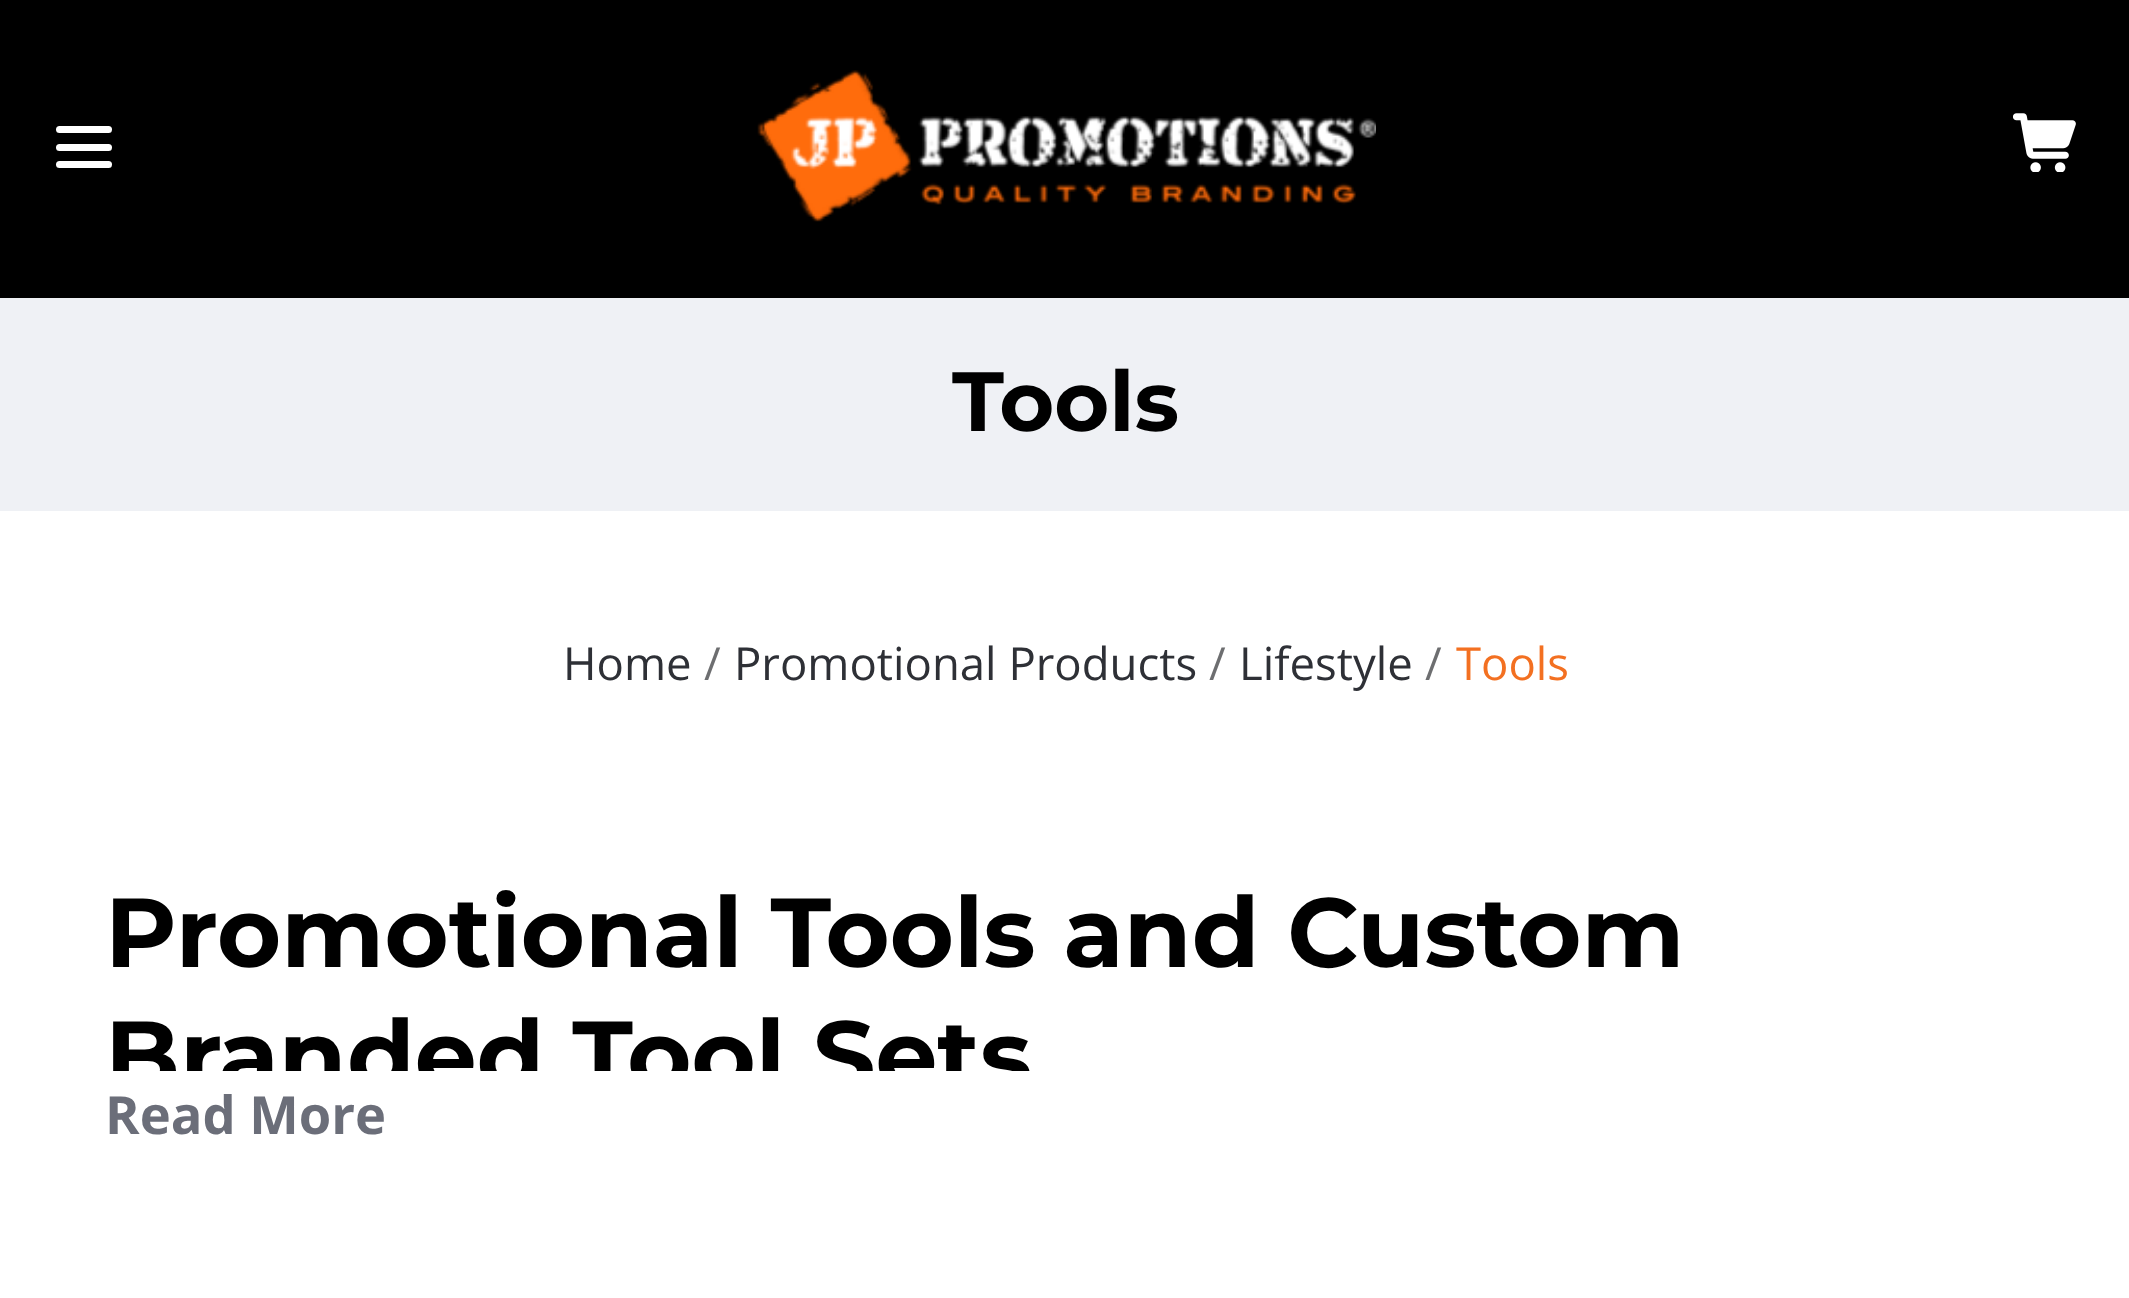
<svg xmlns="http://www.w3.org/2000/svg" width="2129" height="1298">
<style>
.a{font:bold 84px Montserrat;fill:#000}
.b{font:45.5px Open Sans;fill:#2e3036}
.c{font:45.5px Open Sans;fill:#6d6e70}
.d{font:45.5px Open Sans;fill:#f37021}
.e{font:bold 98px Montserrat;fill:#000}
.f{font:bold 52.5px Open Sans;fill:#6b6e79}
</style>
<defs>
<clipPath id="clip1"><path d="M53 791h2026v280H53z"/></clipPath>
</defs>
<rect width="100%" height="100%" fill="#fff"/>
<path fill="#000" d="M0 0h2129v298H0z"/>
<rect fill="#fff" x="56" y="144" width="56" height="7" rx="3.5"/>
<rect fill="#fff" x="56" y="126" width="56" height="7" rx="3.5"/>
<rect fill="#fff" x="56" y="161" width="56" height="7" rx="3.5"/>
<image href="1.png" x="757" y="70" width="619" height="152"/>
<image href="2.png" x="2013" y="113" width="63" height="59"/>
<path fill="#eff1f5" d="M0 298h2129v213H0z"/>
<text class="a" x="952" y="431">Tools</text>
<text class="b" x="563" y="680">Home</text>
<text class="c" x="704" y="680">/</text>
<text class="b" x="734" y="680">Promotional Products</text>
<text class="c" x="1209" y="680">/</text>
<text class="b" x="1239" y="680">Lifestyle</text>
<text class="c" x="1425" y="680">/</text>
<text class="d" x="1456" y="680">Tools</text>
<text class="e" x="105" y="967">Promotional Tools and Custom</text>
<g clip-path="url(#clip1)">
<text class="e" x="105" y="1090">Branded Tool Sets</text>
</g>
<text class="f" x="105" y="1134">Read More</text>
</svg>
